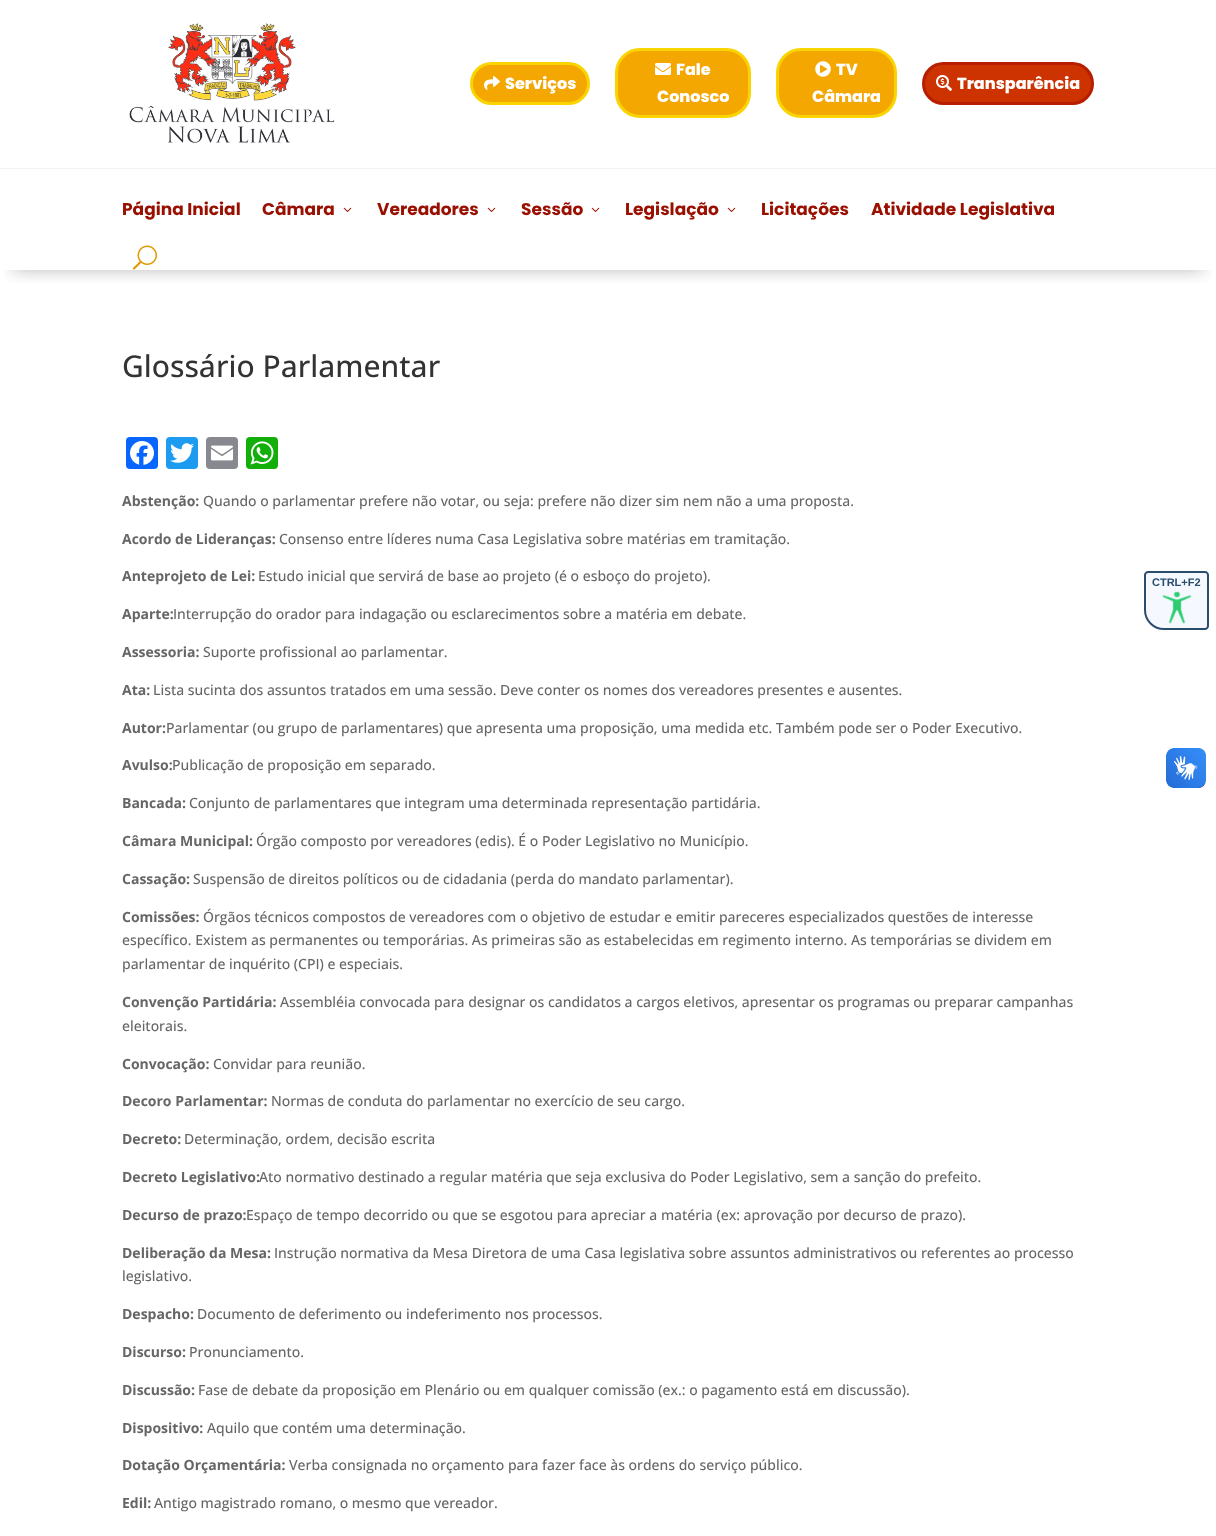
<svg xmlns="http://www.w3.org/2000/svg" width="1216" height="1536">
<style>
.a{font:800 16px Poppins;fill:#fff}
.b{font:bold 17px Poppins;fill:#990f00}
.c{font:500 30px Open Sans;fill:#333}
.d{font:bold 14px Open Sans;fill:#666}
.e{font:500 14px Open Sans;fill:#666}
.f{font:bold 11px Liberation Sans;fill:#2a4d6c}
</style>
<defs>
<clipPath id="clip1"><path d="M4 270h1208v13H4z"/></clipPath>
</defs>
<rect width="100%" height="100%" fill="#fff"/>
<image href="1.png" x="129" y="23" width="206" height="120"/>
<rect fill="#f4a700" stroke="#f9d400" stroke-width="3" x="471.5" y="63.5" width="117" height="40" rx="20"/>
<image href="2.png" x="484" y="76" width="16" height="14"/>
<rect fill="#f4a700" stroke="#f9d400" stroke-width="3" x="616.5" y="49.5" width="133" height="67" rx="23.5"/>
<image href="3.png" x="655" y="63" width="16" height="12"/>
<rect fill="#f4a700" stroke="#f9d400" stroke-width="3" x="777.5" y="49.5" width="118" height="67" rx="23.5"/>
<image href="4.png" x="815" y="61" width="16" height="16"/>
<rect fill="#c30" stroke="#b71e00" stroke-width="3" x="923.5" y="63.5" width="169" height="40" rx="20"/>
<image href="5.png" x="936" y="75" width="16" height="16"/>
<g clip-path="url(#clip1)">
<path fill="#0000004d" filter="blur(9px)" d="M13 193h1190v76H13z"/>
</g>
<path fill="#f2f2f2" d="M0 168h1216v1H0z"/>
<image href="6.png" x="343" y="207" width="9" height="5"/>
<image href="6.png" x="487" y="207" width="9" height="5"/>
<image href="6.png" x="591" y="207" width="9" height="5"/>
<image href="6.png" x="727" y="207" width="9" height="5"/>
<image href="7.png" x="132" y="245" width="25" height="25"/>
<rect fill="#0866ff" x="126" y="437" width="32" height="32" rx="4"/>
<image href="8.png" x="130" y="441" width="24" height="24"/>
<rect fill="#1d9bf0" x="166" y="437" width="32" height="32" rx="4"/>
<image href="9.png" x="170" y="443" width="24" height="20"/>
<rect fill="#888990" x="206" y="437" width="32" height="32" rx="4"/>
<image href="10.png" x="211" y="445" width="22" height="16"/>
<rect fill="#12af0a" x="246" y="437" width="32" height="32" rx="4"/>
<image href="11.png" x="250" y="441" width="24" height="24"/>
<path fill="#f6f8ff" stroke="#2a4d6c" stroke-width="2" d="M1148 572h57c1.5 0 3 1.5 3 3v51c0 1.5-1.5 3-3 3h-41c-10.5 0-19-8.5-19-19v-35c0-1.5 1.5-3 3-3z"/>
<image href="12.png" x="1162" y="591" width="30" height="33"/>
<image href="13.png" x="1166" y="748" width="40" height="40"/>
<image href="14.png" x="1166" y="748" width="40" height="40"/>
<text class="a" x="505" y="89">Serviços</text>
<text class="a" x="676" y="75">Fale</text>
<text class="a" x="657" y="102">Conosco</text>
<text class="a" x="836" y="75">TV</text>
<text class="a" x="812" y="102">Câmara</text>
<text class="a" x="957" y="89">Transparência</text>
<text class="b" x="122" y="215">Página Inicial</text>
<text class="b" x="262" y="215">Câmara</text>
<text class="b" x="377" y="215">Vereadores</text>
<text class="b" x="521" y="215">Sessão</text>
<text class="b" x="625" y="215">Legislação</text>
<text class="b" x="761" y="215">Licitações</text>
<text class="b" x="871" y="215">Atividade Legislativa</text>
<text class="c" x="122" y="377">Glossário Parlamentar</text>
<text class="d" x="122" y="506">Abstenção:</text>
<text class="e" x="203" y="506">Quando o parlamentar prefere não votar, ou seja: prefere não dizer sim nem não a uma proposta.</text>
<text class="d" x="122" y="544">Acordo de Lideranças:</text>
<text class="e" x="279" y="544">Consenso entre líderes numa Casa Legislativa sobre matérias em tramitação.</text>
<text class="d" x="122" y="581">Anteprojeto de Lei:</text>
<text class="e" x="258" y="581">Estudo inicial que servirá de base ao projeto (é o esboço do projeto).</text>
<text class="d" x="122" y="619">Aparte:</text>
<text class="e" x="173" y="619">Interrupção do orador para indagação ou esclarecimentos sobre a matéria em debate.</text>
<text class="d" x="122" y="657">Assessoria:</text>
<text class="e" x="203" y="657">Suporte profissional ao parlamentar.</text>
<text class="d" x="122" y="695">Ata:</text>
<text class="e" x="153" y="695">Lista sucinta dos assuntos tratados em uma sessão. Deve conter os nomes dos vereadores presentes e ausentes.</text>
<text class="d" x="122" y="733">Autor:</text>
<text class="e" x="166" y="733">Parlamentar (ou grupo de parlamentares) que apresenta uma proposição, uma medida etc. Também pode ser o Poder Executivo.</text>
<text class="d" x="122" y="770">Avulso:</text>
<text class="e" x="172" y="770">Publicação de proposição em separado.</text>
<text class="d" x="122" y="808">Bancada:</text>
<text class="e" x="189" y="808">Conjunto de parlamentares que integram uma determinada representação partidária.</text>
<text class="d" x="122" y="846">Câmara Municipal:</text>
<text class="e" x="256" y="846">Órgão composto por vereadores (edis). É o Poder Legislativo no Município.</text>
<text class="d" x="122" y="884">Cassação:</text>
<text class="e" x="193" y="884">Suspensão de direitos políticos ou de cidadania (perda do mandato parlamentar).</text>
<text class="d" x="122" y="922">Comissões:</text>
<text class="e" x="203" y="922">Órgãos técnicos compostos de vereadores com o objetivo de estudar e emitir pareceres especializados questões de interesse</text>
<text class="e" x="122" y="945">específico. Existem as permanentes ou temporárias. As primeiras são as estabelecidas em regimento interno. As temporárias se dividem em</text>
<text class="e" x="122" y="969">parlamentar de inquérito (CPI) e especiais.</text>
<text class="d" x="122" y="1007">Convenção Partidária:</text>
<text class="e" x="280" y="1007">Assembléia convocada para designar os candidatos a cargos eletivos, apresentar os programas ou preparar campanhas</text>
<text class="e" x="122" y="1031">eleitorais.</text>
<text class="d" x="122" y="1069">Convocação:</text>
<text class="e" x="213" y="1069">Convidar para reunião.</text>
<text class="d" x="122" y="1106">Decoro Parlamentar:</text>
<text class="e" x="271" y="1106">Normas de conduta do parlamentar no exercício de seu cargo.</text>
<text class="d" x="122" y="1144">Decreto:</text>
<text class="e" x="184" y="1144">Determinação, ordem, decisão escrita</text>
<text class="d" x="122" y="1182">Decreto Legislativo:</text>
<text class="e" x="259" y="1182">Ato normativo destinado a regular matéria que seja exclusiva do Poder Legislativo, sem a sanção do prefeito.</text>
<text class="d" x="122" y="1220">Decurso de prazo:</text>
<text class="e" x="246" y="1220">Espaço de tempo decorrido ou que se esgotou para apreciar a matéria (ex: aprovação por decurso de prazo).</text>
<text class="d" x="122" y="1258">Deliberação da Mesa:</text>
<text class="e" x="274" y="1258">Instrução normativa da Mesa Diretora de uma Casa legislativa sobre assuntos administrativos ou referentes ao processo</text>
<text class="e" x="122" y="1281">legislativo.</text>
<text class="d" x="122" y="1319">Despacho:</text>
<text class="e" x="197" y="1319">Documento de deferimento ou indeferimento nos processos.</text>
<text class="d" x="122" y="1357">Discurso:</text>
<text class="e" x="189" y="1357">Pronunciamento.</text>
<text class="d" x="122" y="1395">Discussão:</text>
<text class="e" x="198" y="1395">Fase de debate da proposição em Plenário ou em qualquer comissão (ex.: o pagamento está em discussão).</text>
<text class="d" x="122" y="1433">Dispositivo:</text>
<text class="e" x="207" y="1433">Aquilo que contém uma determinação.</text>
<text class="d" x="122" y="1470">Dotação Orçamentária:</text>
<text class="e" x="289" y="1470">Verba consignada no orçamento para fazer face às ordens do serviço público.</text>
<text class="d" x="122" y="1508">Edil:</text>
<text class="e" x="154" y="1508">Antigo magistrado romano, o mesmo que vereador.</text>
<text class="f" x="1152" y="586">CTRL+F2</text>
</svg>
